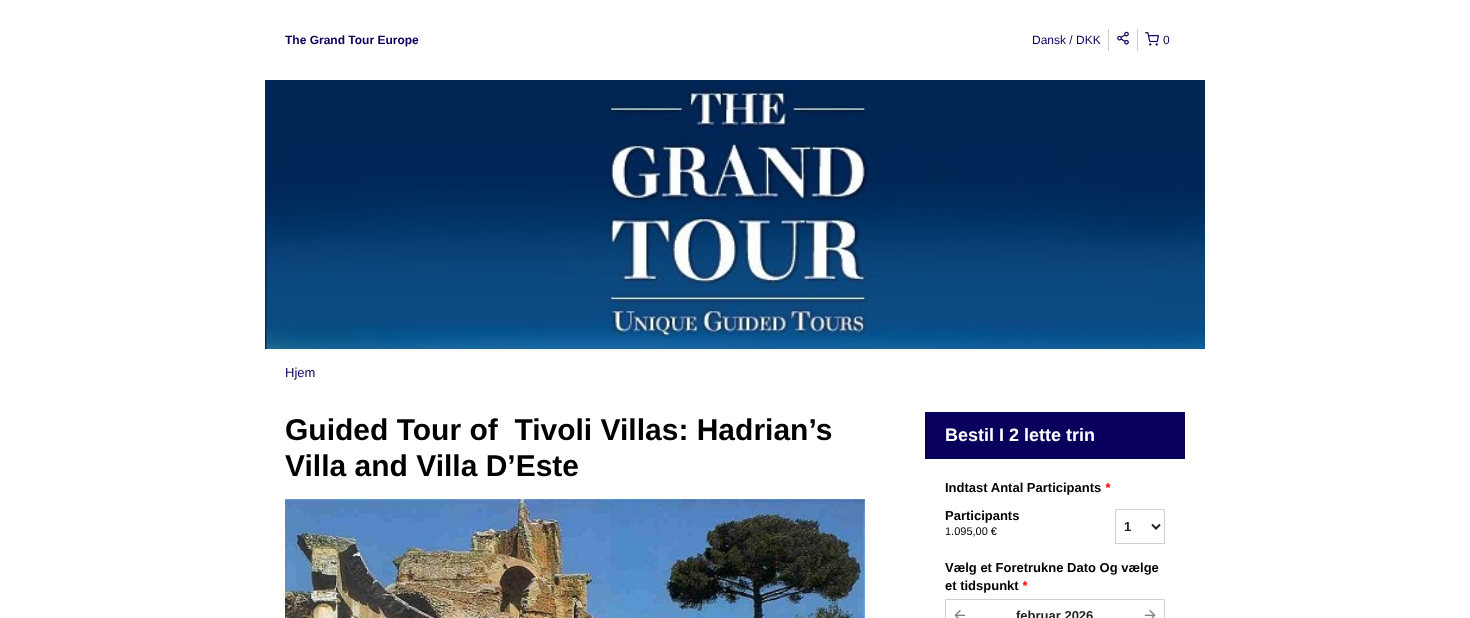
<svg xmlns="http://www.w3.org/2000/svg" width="1470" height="618">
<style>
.a{font:bold 12px Liberation Sans;fill:#08005c}
.b{font:12px Liberation Sans;fill:#08005c}
.c{font:13px Liberation Sans;fill:#08005c}
.d{font:bold 30px Liberation Sans;fill:#000}
.e{font:bold 18px Liberation Sans;fill:#fff}
.f{font:bold 13px Liberation Sans;fill:#000}
.g{font:italic bold 13px Liberation Sans;fill:#f00}
.h{font:11px Liberation Sans;fill:#000}
.i{font:bold 13px Liberation Sans;fill:#222}
</style>
<rect width="100%" height="100%" fill="#fff"/>
<path fill="#ccd1ca" d="M1108 29h1v22H1108z"/>
<path fill="#ccd1ca" d="M1137 29h1v22H1137z"/>
<image href="1.png" x="1117" y="31" width="12" height="14"/>
<image href="2.png" x="1145" y="32" width="14" height="14"/>
<image href="3.png" x="265" y="80" width="940" height="269"/>
<image href="4.png" x="285" y="499" width="580" height="119"/>
<path fill="#08005c" d="M925 412h260v47H925z"/>
<path fill="none" stroke="#ccd1ca" d="M1115.5 509.5h49v34H1115.5z"/>
<path fill="none" stroke="#222" stroke-width="2" d="M1152 524.5l4 4l4-4"/>
<path fill="none" stroke="#ccd1ca" d="M945.5 599.5h219v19H945.5z"/>
<image href="5.png" x="954" y="610" width="12" height="8"/>
<image href="6.png" x="1144" y="610" width="12" height="8"/>
<text class="a" x="285" y="44">The Grand Tour Europe</text>
<text class="b" x="1032" y="44">Dansk /</text>
<text class="b" x="1076" y="44">DKK</text>
<text class="b" x="1163" y="44">0</text>
<text class="c" x="285" y="377">Hjem</text>
<text class="d" xml:space="preserve" x="285" y="440">Guided Tour of  Tivoli Villas: Hadrian’s</text>
<text class="d" x="285" y="476">Villa and Villa D’Este</text>
<text class="e" x="945" y="441">Bestil I 2 lette trin</text>
<text class="f" x="945" y="492">Indtast Antal Participants</text>
<text class="g" x="1105" y="492">*</text>
<text class="f" x="945" y="520">Participants</text>
<text class="h" x="945" y="535">1.095,00 €</text>
<text class="i" x="1124" y="531">1</text>
<text class="f" x="945" y="572">Vælg et Foretrukne Dato Og vælge</text>
<text class="f" x="945" y="590">et tidspunkt</text>
<text class="g" x="1022" y="590">*</text>
<text class="i" x="1016" y="620">februar 2026</text>
</svg>
